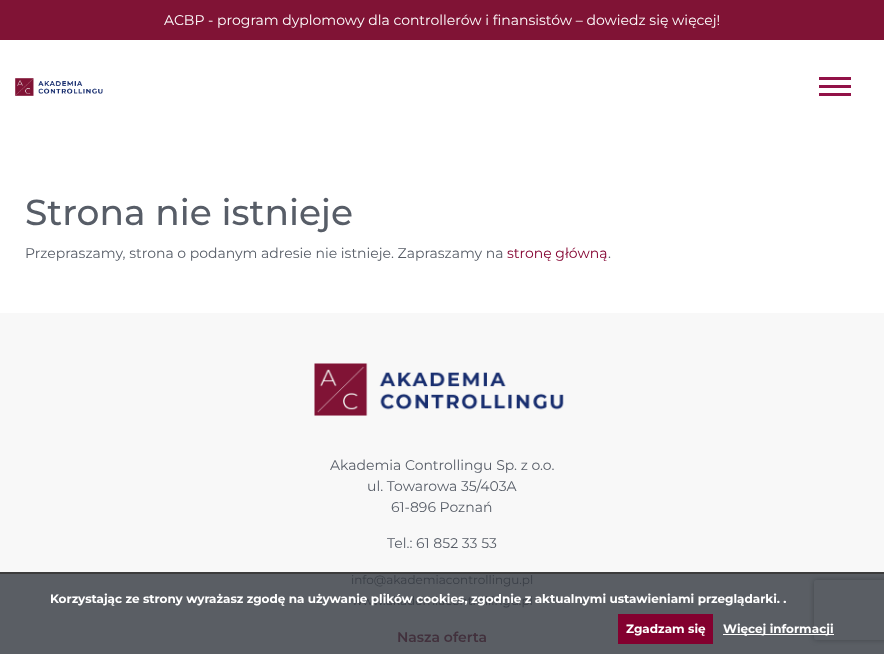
<svg xmlns="http://www.w3.org/2000/svg" width="884" height="654">
<style>
.a{font:14px Montserrat;fill:#fff}
.b{font:500 36px Montserrat;fill:#575d67}
.c{font:14px Montserrat;fill:#575d67}
.d{font:14px Montserrat;fill:#83002f}
.e{font:12px Montserrat;fill:#3a3f47}
.f{font:600 14px Montserrat;fill:#42313d}
.g{font:bold 12px Montserrat;fill:#fff}
</style>
<defs>
<clipPath id="clip1"><path d="M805 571h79v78h-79zm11 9h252c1 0 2 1 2 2v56c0 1-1 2-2 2h-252c-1 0-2-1-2-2v-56c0-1 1-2 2-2z" clip-rule="evenodd"/></clipPath>
</defs>
<rect width="100%" height="100%" fill="#fff"/>
<path fill="#801335" d="M0 0h884v40H0z"/>
<image href="1.png" x="15" y="78" width="88" height="18"/>
<path fill="#921247" d="M819 77h32v3H819z"/>
<path fill="#921247" d="M819 85h32v3H819z"/>
<path fill="#921247" d="M819 93h32v3H819z"/>
<path fill="#f8f8f8" d="M0 313h884v259H0z"/>
<path fill="#5a5e64" d="M0 574h884v80H0z"/>
<image href="2.png" x="314" y="363" width="250" height="53"/>
<g clip-path="url(#clip1)">
<rect fill="#42464c" filter="blur(2.5px)" x="814" y="580" width="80" height="60" rx="2"/>
</g>
<path fill="#3c3c3c" d="M0 572h884v2H0z"/>
<path fill="#83002f" d="M618 614h95v30H618z"/>
<path fill="#fff" d="M723 634h111v1H723z"/>
<text class="a" x="164" y="25">ACBP - program dyplomowy dla controllerów i finansistów – dowiedz się więcej!</text>
<text class="b" x="25" y="225">Strona nie istnieje</text>
<text class="c" x="25" y="258">Przepraszamy, strona o podanym adresie nie istnieje. Zapraszamy na</text>
<text class="d" x="507" y="258">stronę główną</text>
<text class="c" x="608" y="258">.</text>
<text class="c" x="330" y="470">Akademia Controllingu Sp. z o.o.</text>
<text class="c" x="367" y="491">ul. Towarowa 35/403A</text>
<text class="c" x="391" y="512">61-896 Poznań</text>
<text class="c" x="387" y="548">Tel.: 61 852 33 53</text>
<text class="e" x="351" y="584">info@akademiacontrollingu.pl</text>
<text class="e" x="352" y="605">www.akademiacontrollingu.pl</text>
<text class="f" x="397" y="642">Nasza oferta</text>
<text class="g" x="50" y="603">Korzystając ze strony wyrażasz zgodę na używanie plików cookies, zgodnie z aktualnymi ustawieniami przeglądarki. .</text>
<text class="g" x="626" y="633">Zgadzam się</text>
<text class="g" x="723" y="633">Więcej informacji</text>
</svg>
